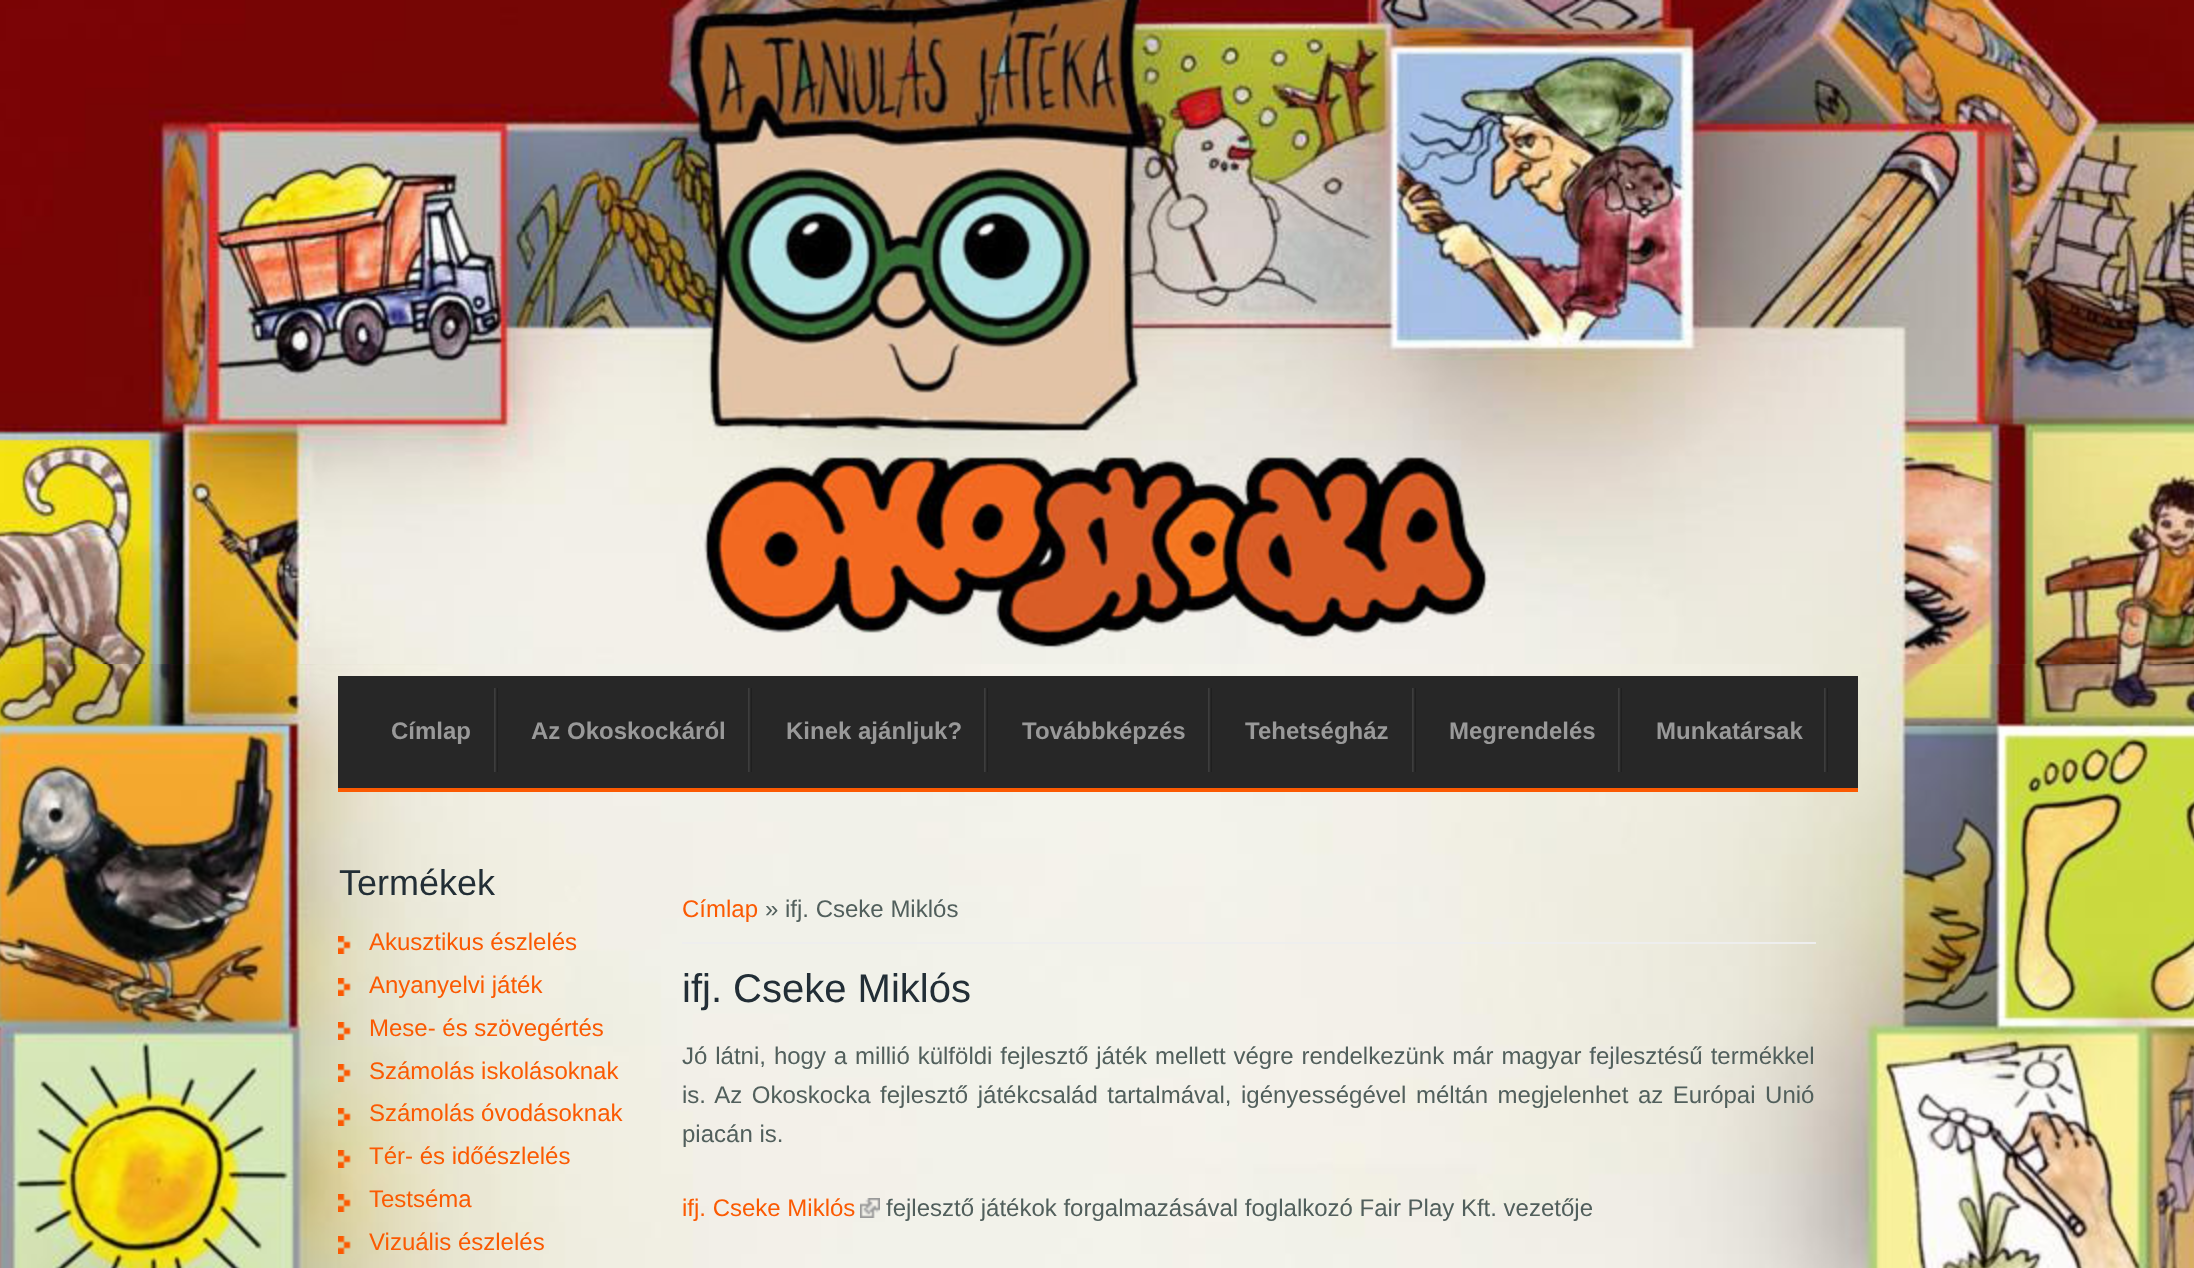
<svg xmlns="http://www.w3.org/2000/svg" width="2194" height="1268">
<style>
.a{font:bold 24px Liberation Sans;fill:#999}
.b{font:36px Liberation Sans;fill:#222e36}
.c{font:24px Liberation Sans;fill:#fb5a02}
.d{font:24px Liberation Sans;fill:#515f5c}
.e{font:40px Liberation Sans;fill:#222e36}
</style>
<rect width="100%" height="100%" fill="#fff"/>
<image href="1.png" x="0" y="664" width="2194" height="604"/>
<image href="2.png" x="0" y="0" width="2194" height="664"/>
<path fill="#272727" d="M338 676h1520v112H338z"/>
<path fill="#fb5a02" d="M338 788h1520v4H338z"/>
<image href="3.png" x="494" y="688" width="4" height="84"/>
<image href="3.png" x="748" y="688" width="4" height="84"/>
<image href="3.png" x="984" y="688" width="4" height="84"/>
<image href="3.png" x="1208" y="688" width="4" height="84"/>
<image href="3.png" x="1412" y="688" width="4" height="84"/>
<image href="3.png" x="1618" y="688" width="4" height="84"/>
<image href="3.png" x="1824" y="688" width="4" height="84"/>
<image href="4.png" x="338" y="936" width="13" height="18"/>
<image href="5.png" x="338" y="978" width="13" height="18"/>
<image href="6.png" x="338" y="1022" width="13" height="18"/>
<image href="7.png" x="338" y="1064" width="13" height="18"/>
<image href="8.png" x="338" y="1108" width="13" height="18"/>
<image href="9.png" x="338" y="1150" width="13" height="18"/>
<image href="10.png" x="338" y="1194" width="13" height="18"/>
<image href="11.png" x="338" y="1236" width="13" height="18"/>
<path fill="#eee" d="M682 942h1134v2H682z"/>
<image href="12.png" x="860" y="1198" width="20" height="20"/>
<text class="a" x="391" y="739">Címlap</text>
<text class="a" x="531" y="739">Az Okoskockáról</text>
<text class="a" x="786" y="739">Kinek ajánljuk?</text>
<text class="a" x="1022" y="739">Továbbképzés</text>
<text class="a" x="1245" y="739">Tehetségház</text>
<text class="a" x="1449" y="739">Megrendelés</text>
<text class="a" x="1656" y="739">Munkatársak</text>
<text class="b" x="339" y="895">Termékek</text>
<text class="c" x="369" y="950">Akusztikus észlelés</text>
<text class="c" x="369" y="993">Anyanyelvi játék</text>
<text class="c" x="369" y="1036">Mese- és szövegértés</text>
<text class="c" x="369" y="1079">Számolás iskolásoknak</text>
<text class="c" x="369" y="1121">Számolás óvodásoknak</text>
<text class="c" x="369" y="1164">Tér- és időészlelés</text>
<text class="c" x="369" y="1207">Testséma</text>
<text class="c" x="369" y="1250">Vizuális észlelés</text>
<text class="c" x="682" y="917">Címlap</text>
<text class="d" x="765" y="917">» ifj. Cseke Miklós</text>
<text class="e" x="682" y="1002">ifj. Cseke Miklós</text>
<text class="d" x="682" y="1064" word-spacing="1.25">Jó látni, hogy a millió külföldi fejlesztő játék mellett végre rendelkezünk már magyar fejlesztésű termékkel</text>
<text class="d" x="682" y="1103" word-spacing="2.9">is. Az Okoskocka fejlesztő játékcsalád tartalmával, igényességével méltán megjelenhet az Európai Unió</text>
<text class="d" x="682" y="1142">piacán is.</text>
<text class="c" x="682" y="1216">ifj. Cseke Miklós</text>
<text class="d" x="886" y="1216">fejlesztő játékok forgalmazásával foglalkozó Fair Play Kft. vezetője</text>
</svg>
